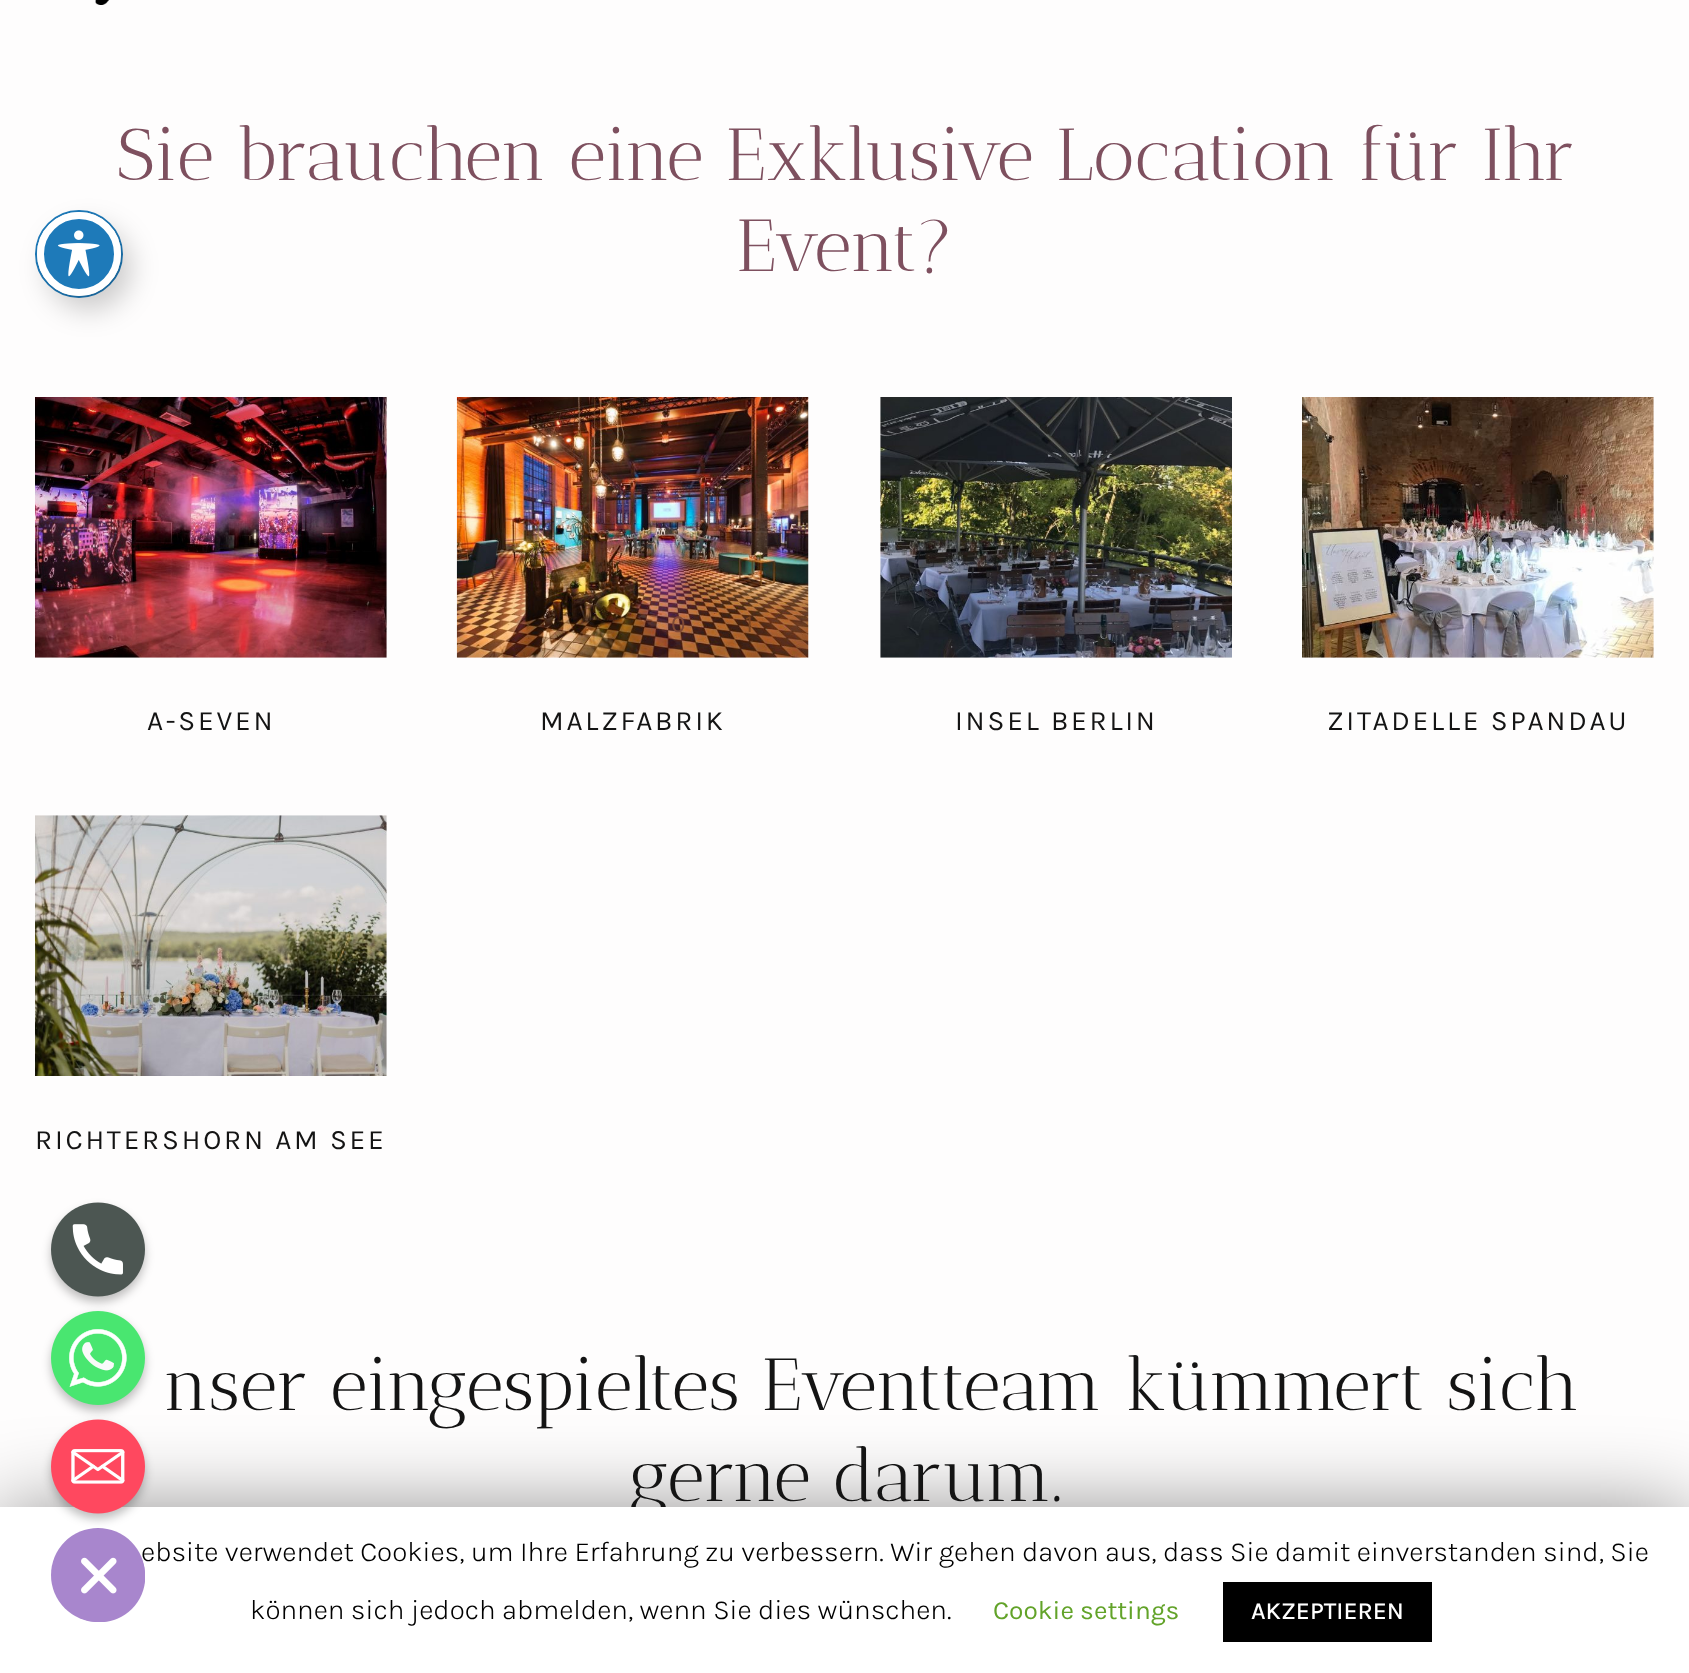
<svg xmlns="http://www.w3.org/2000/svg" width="1689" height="1673">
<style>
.a{font:73.5px Antic Didone;fill:#7e505f}
.b{font:28px Karla;letter-spacing:2.75px;fill:#141414}
.c{font:24.5px Karla;fill:#7e4836}
.d{font:24.5px Karla;fill:#7a4420}
.e{font:73.5px Antic Didone;fill:#141414}
.f{font:300 28px Karla;fill:#000}
.g{font:26.25px Karla;fill:#62a329}
.h{font:500 24.5px Karla;fill:#fff}
</style>
<rect width="100%" height="100%" fill="#fefdfd"/>
<image href="1.png" x="95" y="0" width="14" height="5"/>
<image href="2.png" x="35" y="397" width="352" height="261"/>
<image href="3.png" x="456" y="397" width="353" height="261"/>
<image href="4.png" x="880" y="397" width="352" height="261"/>
<image href="5.png" x="1302" y="397" width="352" height="261"/>
<image href="6.png" x="35" y="815" width="352" height="261"/>
<circle fill="none" stroke="#1e7ab9" stroke-width="2" cx="79" cy="254" r="43"/>
<rect fill="#00000033" filter="blur(14px)" x="47" y="226" width="84" height="84" rx="42"/>
<circle fill="#1e7ab9" stroke="#fff" stroke-width="7" cx="79" cy="254" r="38.5"/>
<image href="7.png" x="58" y="230" width="42" height="47"/>
<rect fill="#00000040" filter="blur(5px)" x="51" y="1208" width="94" height="94" rx="47"/>
<image href="8.png" x="51" y="1202" width="94" height="95"/>
<rect fill="#00000040" filter="blur(5px)" x="51" y="1316" width="94" height="95" rx="47"/>
<path fill="#00000080" filter="blur(44px)" d="M0 1516h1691v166H0z"/>
<image href="9.png" x="51" y="1311" width="94" height="94"/>
<text class="a" x="116" y="180">Sie brauchen eine Exklusive Location für Ihr</text>
<text class="a" x="736" y="271">Event?</text>
<text class="b" x="147" y="730">A-SEVEN</text>
<text class="c" x="671" y="632">0</text>
<text class="d" x="745" y="632">1</text>
<text class="b" x="540" y="730">MALZFABRIK</text>
<text class="b" x="955" y="730">INSEL BERLIN</text>
<text class="b" x="1327" y="730">ZITADELLE SPANDAU</text>
<text class="b" x="35" y="1149">RICHTERSHORN AM SEE</text>
<text class="e" x="163" y="1410">nser eingespieltes Eventteam kümmert sich</text>
<text class="e" x="628" y="1501">gerne darum.</text>
<path fill="#fff" d="M0 1507h1689v166H0z"/>
<text class="f" x="141" y="1561">ebsite verwendet Cookies, um Ihre Erfahrung zu verbessern. Wir gehen davon aus, dass Sie damit einverstanden sind, Sie</text>
<circle fill="#a886cd" cx="98" cy="1575" r="47"/>
<rect fill="#00000040" filter="blur(5px)" x="51" y="1425" width="94" height="94" rx="47"/>
<image href="10.png" x="51" y="1419" width="94" height="95"/>
<image href="11.png" x="81" y="1557" width="64" height="65"/>
<text class="f" x="250" y="1619">können sich jedoch abmelden, wenn Sie dies wünschen.</text>
<text class="g" x="993" y="1619">Cookie settings</text>
<path fill="#000" d="M1223 1582h209v60H1223z"/>
<text class="h" x="1251" y="1619">AKZEPTIEREN</text>
</svg>
